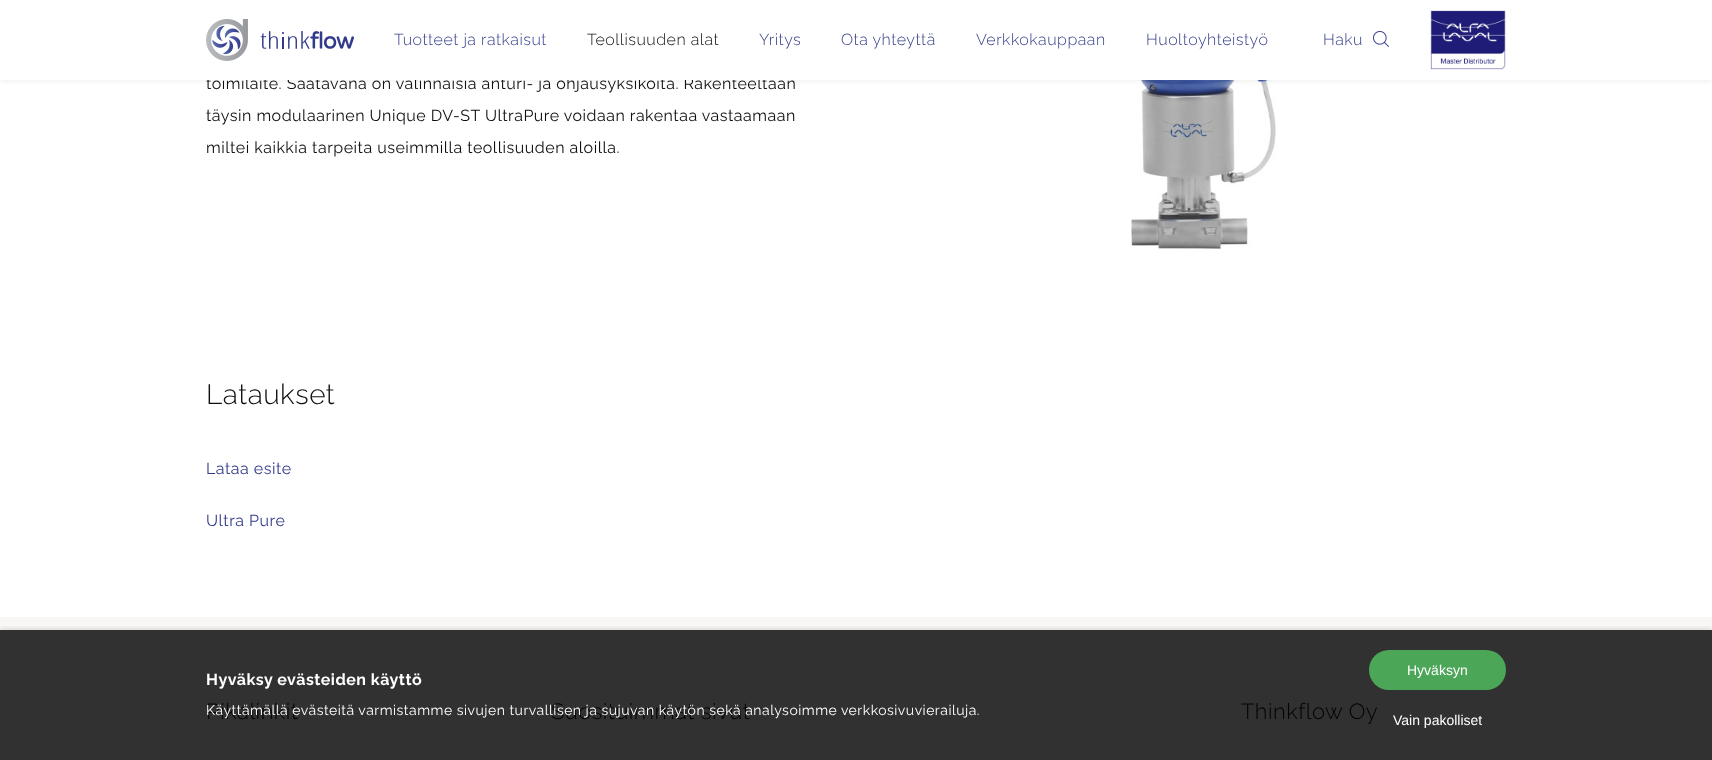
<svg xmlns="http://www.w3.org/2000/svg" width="1712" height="760">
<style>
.a{font:16px Raleway;letter-spacing:0.5px;fill:#0f0f10}
.b{font:300 16px Raleway;letter-spacing:0.5px;fill:#333c89}
.c{font:300 16px Raleway;letter-spacing:0.5px;fill:#0f0f10}
.d{font:300 28px Raleway;letter-spacing:0.5px;fill:#0f0f10}
.e{font:16px Raleway;letter-spacing:0.5px;fill:#333c89}
.f{font:bold 16px Raleway;letter-spacing:0.5px;fill:#fff}
.g{font:14px Liberation Sans;fill:#fff}
.h{font:300 22px Raleway;letter-spacing:0.5px;fill:#030303}
.i{font:14px Raleway;letter-spacing:0.5px;fill:#fff}
</style>
<defs>
<clipPath id="clip1"><path d="M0 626h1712v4H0z"/></clipPath>
</defs>
<rect width="100%" height="100%" fill="#f9f7f6"/>
<path fill="#323131" d="M0 630h1712v130H0z"/>
<path fill="#fff" d="M0 80h1712v537H0z"/>
<image href="4.png" x="1131" y="80" width="145" height="169"/>
<path fill="#0f0f100d" filter="blur(2px)" d="M0 2h1712v80H0z"/>
<g clip-path="url(#clip1)">
<path fill="#0000001a" filter="blur(2px)" d="M0 628h1712v130H0z"/>
</g>
<rect fill="#4ca658" x="1369" y="650" width="137" height="40" rx="20"/>
<text class="a" x="206" y="89">toimilaite. Saatavana on valinnaisia anturi- ja ohjausyksiköitä. Rakenteeltaan</text>
<path fill="#fff" d="M0 0h1712v80H0z"/>
<image href="1.png" x="206" y="19" width="148" height="42"/>
<image href="3.png" x="1430" y="10" width="76" height="60"/>
<image href="2.png" x="1373" y="31" width="16" height="16"/>
<text class="b" x="1323" y="45">Haku</text>
<text class="b" x="1146" y="45">Huoltoyhteistyö</text>
<text class="b" x="976" y="45">Verkkokauppaan</text>
<text class="b" x="841" y="45">Ota yhteyttä</text>
<text class="b" x="759" y="45">Yritys</text>
<text class="c" x="587" y="45">Teollisuuden alat</text>
<text class="b" x="394" y="45">Tuotteet ja ratkaisut</text>
<text class="a" x="206" y="121">täysin modulaarinen Unique DV-ST UltraPure voidaan rakentaa vastaamaan</text>
<text class="a" x="206" y="153">miltei kaikkia tarpeita useimmilla teollisuuden aloilla.</text>
<text class="d" x="206" y="404">Lataukset</text>
<text class="e" x="206" y="474">Lataa esite</text>
<text class="e" x="206" y="526">Ultra Pure</text>
<text class="f" x="206" y="685">Hyväksy evästeiden käyttö</text>
<text class="g" x="1407" y="675">Hyväksyn</text>
<text class="g" x="1393" y="725">Vain pakolliset</text>
<text class="h" x="206" y="719">Pikalinkit</text>
<text class="h" x="551" y="719">Suosituimmat sivut</text>
<text class="i" x="206" y="715">Käyttämällä evästeitä varmistamme sivujen turvallisen ja sujuvan käytön sekä analysoimme verkkosivuvierailuja.</text>
<text class="h" x="1241" y="719">Thinkflow Oy</text>
</svg>
